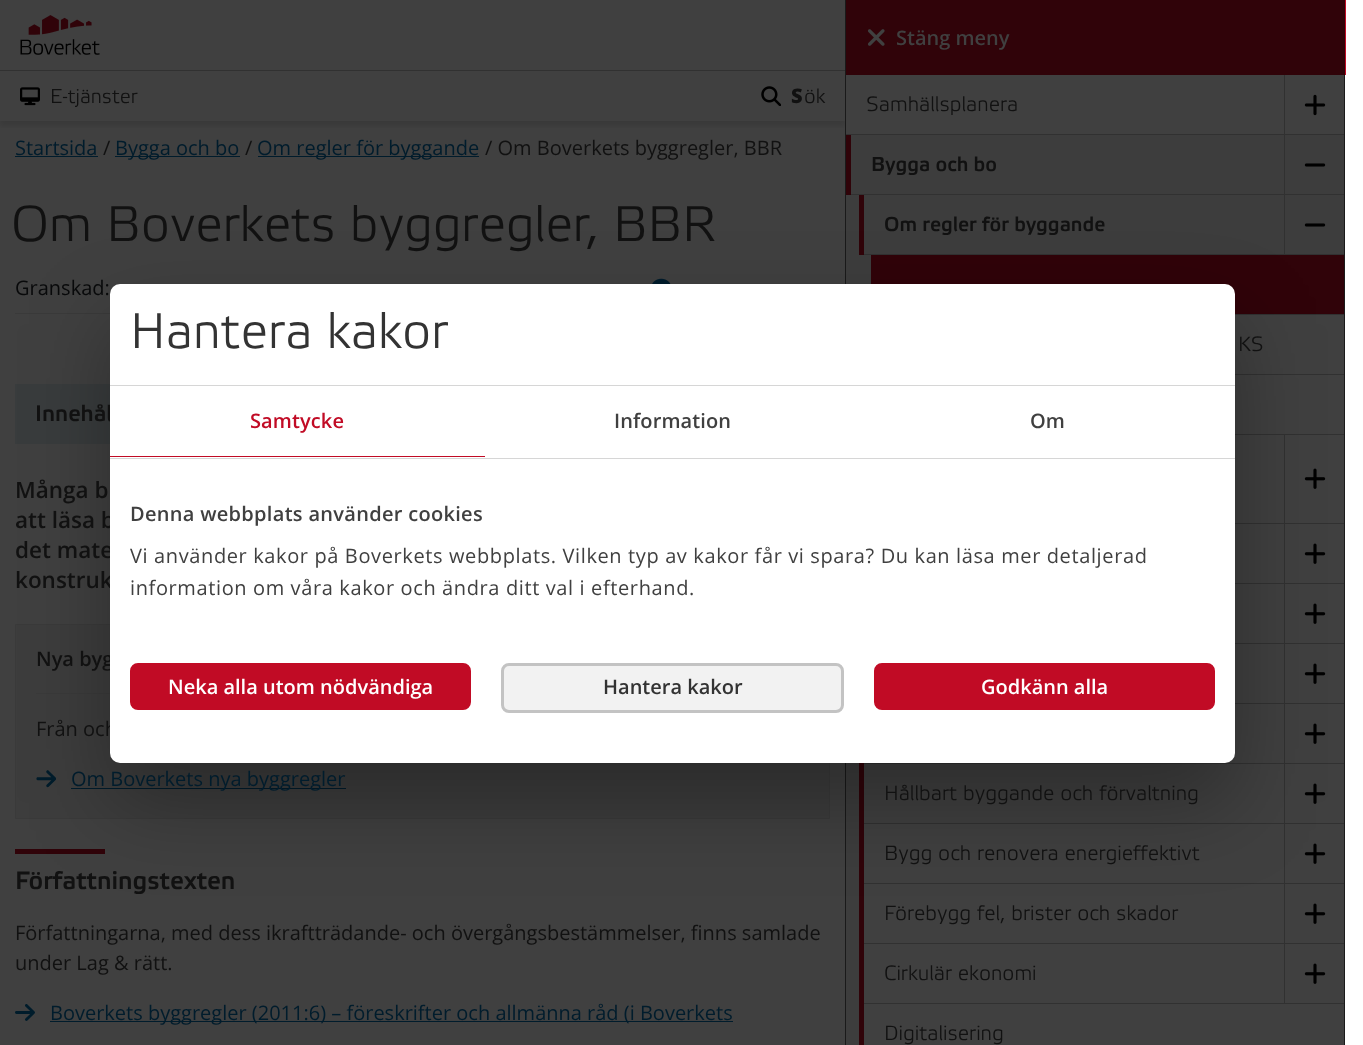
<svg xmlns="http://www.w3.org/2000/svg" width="1363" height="1045">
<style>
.a{font:300 20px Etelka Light;fill:#111}
.b{font:900 20px Noto Sans;fill:#111}
.c{font:20px Open Sans;fill:#001c2c}
.d{font:20px Open Sans;fill:#111}
.e{font:300 50px Etelka Light;fill:#111}
.f{font:20px Open Sans;fill:#08090a}
.g{font:500 22.5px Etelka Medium;fill:#111}
.h{font:600 22.5px Open Sans;fill:#111}
.i{font:600 20px Open Sans;fill:#111}
.j{font:500 25px Etelka Medium;fill:#111}
.k{font:600 20px Open Sans;fill:#404040}
.l{font:300 20.6px Etelka Light;fill:#111}
.m{font:500 20px Etelka Medium;fill:#111}
.n{font:300 50px Etelka Light;letter-spacing:0.1px;fill:#333}
.o{font:600 20px Open Sans;letter-spacing:0.1px;fill:#c10b25}
.p{font:600 20px Open Sans;letter-spacing:0.1px;fill:#404040}
.q{font:600 20px Open Sans;letter-spacing:0.3px;fill:#404040}
.r{font:20px Open Sans;letter-spacing:0.62px;fill:#404040}
.s{font:600 20px Open Sans;fill:#fff}
.t{font:600 20px Open Sans;fill:#333}
</style>
<defs>
<clipPath id="clip1"><path d="M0 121h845v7H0z"/></clipPath>
</defs>
<rect width="100%" height="100%" fill="#fff"/>
<path fill="#404040" d="M0 0h845v1045H0z"/>
<g clip-path="url(#clip1)">
<path fill="#0000001a" filter="blur(2.5px)" d="M0 5h845v121H0z"/>
</g>
<path fill="#313131" d="M0 70h845v1H0z"/>
<image href="1.png" x="20" y="15" width="80" height="40"/>
<image href="2.png" x="20" y="87" width="20" height="19"/>
<image href="3.png" x="761" y="86" width="20" height="20"/>
<path fill="#001c2c" d="M15 156h83v1H15z"/>
<path fill="#001c2c" d="M115 156h125v1H115z"/>
<path fill="#001c2c" d="M258 156h221v1H258z"/>
<path fill="#3a3a3a" d="M15 313h95v1H15z"/>
<image href="4.png" x="652" y="278" width="19" height="6"/>
<path fill="#393c3d" d="M15 384h95v60H15z"/>
<path fill="#3d3d3d" stroke="#3a3a3a" d="M15.5 624.5h814v194H15.5z"/>
<path fill="#3a3a3a" d="M36 693h74v1H36z"/>
<image href="5.png" x="36" y="770" width="20" height="18"/>
<path fill="#001c2c" d="M71 788h275v1H71z"/>
<path fill="#300309" d="M15 849h90v5H15z"/>
<image href="6.png" x="15" y="1004" width="20" height="17"/>
<path fill="#001c2c" d="M50 1021h683v1H50z"/>
<path fill="#3d3d3d" d="M846 135h498v910H846z"/>
<path fill="#1a1a1a" d="M1344 75h1v970H1344z"/>
<path fill="#1a1a1a" d="M845 0h1v1045H845z"/>
<path fill="#c10b25" d="M1345 0h1v75H1345z"/>
<path fill="#300309" d="M846 0h499v75H846z"/>
<image href="7.png" x="867" y="29" width="18" height="17"/>
<path fill="#404040" d="M846 75h498v59H846z"/>
<path fill="#313131" d="M846 134h498v1H846z"/>
<path fill="#313131" d="M1284 75h1v60H1284z"/>
<image href="8.png" x="1304" y="94" width="22" height="22"/>
<path fill="#300309" d="M846 135h5v60H846z"/>
<path fill="#313131" d="M851 194h493v1H851z"/>
<path fill="#313131" d="M1284 135h1v60H1284z"/>
<image href="9.png" x="1304" y="163" width="22" height="4"/>
<path fill="#300309" d="M859 195h5v60H859z"/>
<path fill="#313131" d="M864 254h480v1H864z"/>
<path fill="#313131" d="M1284 195h1v60H1284z"/>
<image href="9.png" x="1304" y="223" width="22" height="4"/>
<path fill="#300309" d="M871 255h473v59H871z"/>
<path fill="#313131" d="M1235 314h109v1H1235z"/>
<path fill="#404040" d="M1235 315h109v59H1235z"/>
<path fill="#313131" d="M1235 374h109v1H1235z"/>
<path fill="#404040" d="M1235 375h109v59H1235z"/>
<path fill="#313131" d="M1235 434h109v1H1235z"/>
<path fill="#404040" d="M1235 435h109v88H1235z"/>
<path fill="#313131" d="M1235 523h109v1H1235z"/>
<path fill="#313131" d="M1284 435h1v89H1284z"/>
<image href="10.png" x="1304" y="468" width="22" height="21"/>
<path fill="#404040" d="M1235 524h109v59H1235z"/>
<path fill="#313131" d="M1235 583h109v1H1235z"/>
<path fill="#313131" d="M1284 524h1v60H1284z"/>
<image href="10.png" x="1304" y="543" width="22" height="21"/>
<path fill="#404040" d="M1235 584h109v59H1235z"/>
<path fill="#313131" d="M1235 643h109v1H1235z"/>
<path fill="#313131" d="M1284 584h1v60H1284z"/>
<image href="10.png" x="1304" y="603" width="22" height="21"/>
<path fill="#404040" d="M1235 644h109v59H1235z"/>
<path fill="#313131" d="M1235 703h109v1H1235z"/>
<path fill="#313131" d="M1284 644h1v60H1284z"/>
<image href="10.png" x="1304" y="663" width="22" height="21"/>
<path fill="#404040" d="M1225 704h119v59H1225z"/>
<path fill="#300309" d="M859 763h5v282H859z"/>
<path fill="#313131" d="M864 763h480v1H864z"/>
<path fill="#313131" d="M1284 704h1v60H1284z"/>
<image href="10.png" x="1304" y="723" width="22" height="21"/>
<path fill="#404040" d="M864 764h480v59H864z"/>
<path fill="#313131" d="M864 823h480v1H864z"/>
<path fill="#313131" d="M1284 764h1v60H1284z"/>
<image href="10.png" x="1304" y="783" width="22" height="21"/>
<path fill="#404040" d="M864 824h480v59H864z"/>
<path fill="#313131" d="M864 883h480v1H864z"/>
<path fill="#313131" d="M1284 824h1v60H1284z"/>
<image href="10.png" x="1304" y="843" width="22" height="21"/>
<path fill="#404040" d="M864 884h480v59H864z"/>
<path fill="#313131" d="M864 943h480v1H864z"/>
<path fill="#313131" d="M1284 884h1v60H1284z"/>
<image href="10.png" x="1304" y="903" width="22" height="21"/>
<path fill="#404040" d="M864 944h480v59H864z"/>
<path fill="#313131" d="M864 1003h480v1H864z"/>
<path fill="#313131" d="M1284 944h1v60H1284z"/>
<image href="10.png" x="1304" y="963" width="22" height="21"/>
<path fill="#404040" d="M864 1004h480v41H864z"/>
<rect fill="#0000004d" filter="blur(42.5px)" x="110" y="324" width="1125" height="479" rx="10"/>
<text class="a" x="50" y="103">E-tjänster</text>
<text class="b" x="791" y="103">S</text>
<text class="a" x="804" y="103">ök</text>
<text class="c" x="15" y="155">Startsida</text>
<text class="d" x="103" y="155">/</text>
<text class="c" x="115" y="155">Bygga och bo</text>
<text class="d" x="245" y="155">/</text>
<text class="c" x="257" y="155">Om regler för byggande</text>
<text class="d" x="485" y="155">/ Om Boverkets byggregler, BBR</text>
<text class="e" x="11" y="241">Om Boverkets byggregler, BBR</text>
<text class="f" x="15" y="295">Granskad:</text>
<text class="g" x="35" y="421">Innehål</text>
<text class="h" x="15" y="498">Många b</text>
<text class="h" x="15" y="528">att läsa b</text>
<text class="h" x="15" y="558">det mate</text>
<text class="h" x="15" y="588">konstruk</text>
<text class="i" x="36" y="666">Nya byg</text>
<text class="d" x="36" y="736">Från och</text>
<text class="c" x="71" y="786">Om Boverkets nya byggregler</text>
<text class="j" x="15" y="889">Författningstexten</text>
<text class="d" x="15" y="940">Författningarna, med dess ikraftträdande- och övergångsbestämmelser, finns samlade</text>
<text class="d" x="15" y="970">under Lag &amp; rätt.</text>
<text class="c" x="50" y="1020">Boverkets byggregler (2011:6) – föreskrifter och allmänna råd (i Boverkets</text>
<text class="k" x="896" y="45">Stäng meny</text>
<text class="l" x="866" y="111">Samhällsplanera</text>
<text class="m" x="871" y="171">Bygga och bo</text>
<text class="m" x="884" y="231">Om regler för byggande</text>
<text class="l" x="1238" y="351">KS</text>
<text class="l" x="884" y="800">Hållbart byggande och förvaltning</text>
<text class="l" x="884" y="860">Bygg och renovera energieffektivt</text>
<text class="l" x="884" y="920">Förebygg fel, brister och skador</text>
<text class="l" x="884" y="980">Cirkulär ekonomi</text>
<text class="l" x="884" y="1040">Digitalisering</text>
<rect fill="#fff" x="110" y="284" width="1125" height="479" rx="10"/>
<path fill="#d6d6d6" d="M110 385h1125v1H110z"/>
<text class="n" x="130" y="348">Hantera kakor</text>
<path fill="#d6d6d6" d="M110 458h1125v1H110z"/>
<path fill="#c10b25" d="M110 456h375v1H110z"/>
<text class="o" x="250" y="428">Samtycke</text>
<text class="p" x="614" y="428">Information</text>
<text class="p" x="1030" y="428">Om</text>
<text class="q" x="130" y="521">Denna webbplats använder cookies</text>
<text class="r" x="130" y="563">Vi använder kakor på Boverkets webbplats. Vilken typ av kakor får vi spara? Du kan läsa mer detaljerad</text>
<text class="r" x="130" y="595">information om våra kakor och ändra ditt val i efterhand.</text>
<rect fill="#c10b25" stroke="#c10b25" stroke-width="3" x="131.5" y="664.5" width="338" height="44" rx="6.5"/>
<text class="s" x="168" y="694">Neka alla utom nödvändiga</text>
<rect fill="#f2f2f2" stroke="#c3c3c3" stroke-width="3" x="502.5" y="664.5" width="340" height="47" rx="6.5"/>
<text class="t" x="603" y="694">Hantera kakor</text>
<rect fill="#c10b25" stroke="#c10b25" stroke-width="3" x="875.5" y="664.5" width="338" height="44" rx="6.5"/>
<text class="s" x="981" y="694">Godkänn alla</text>
</svg>
